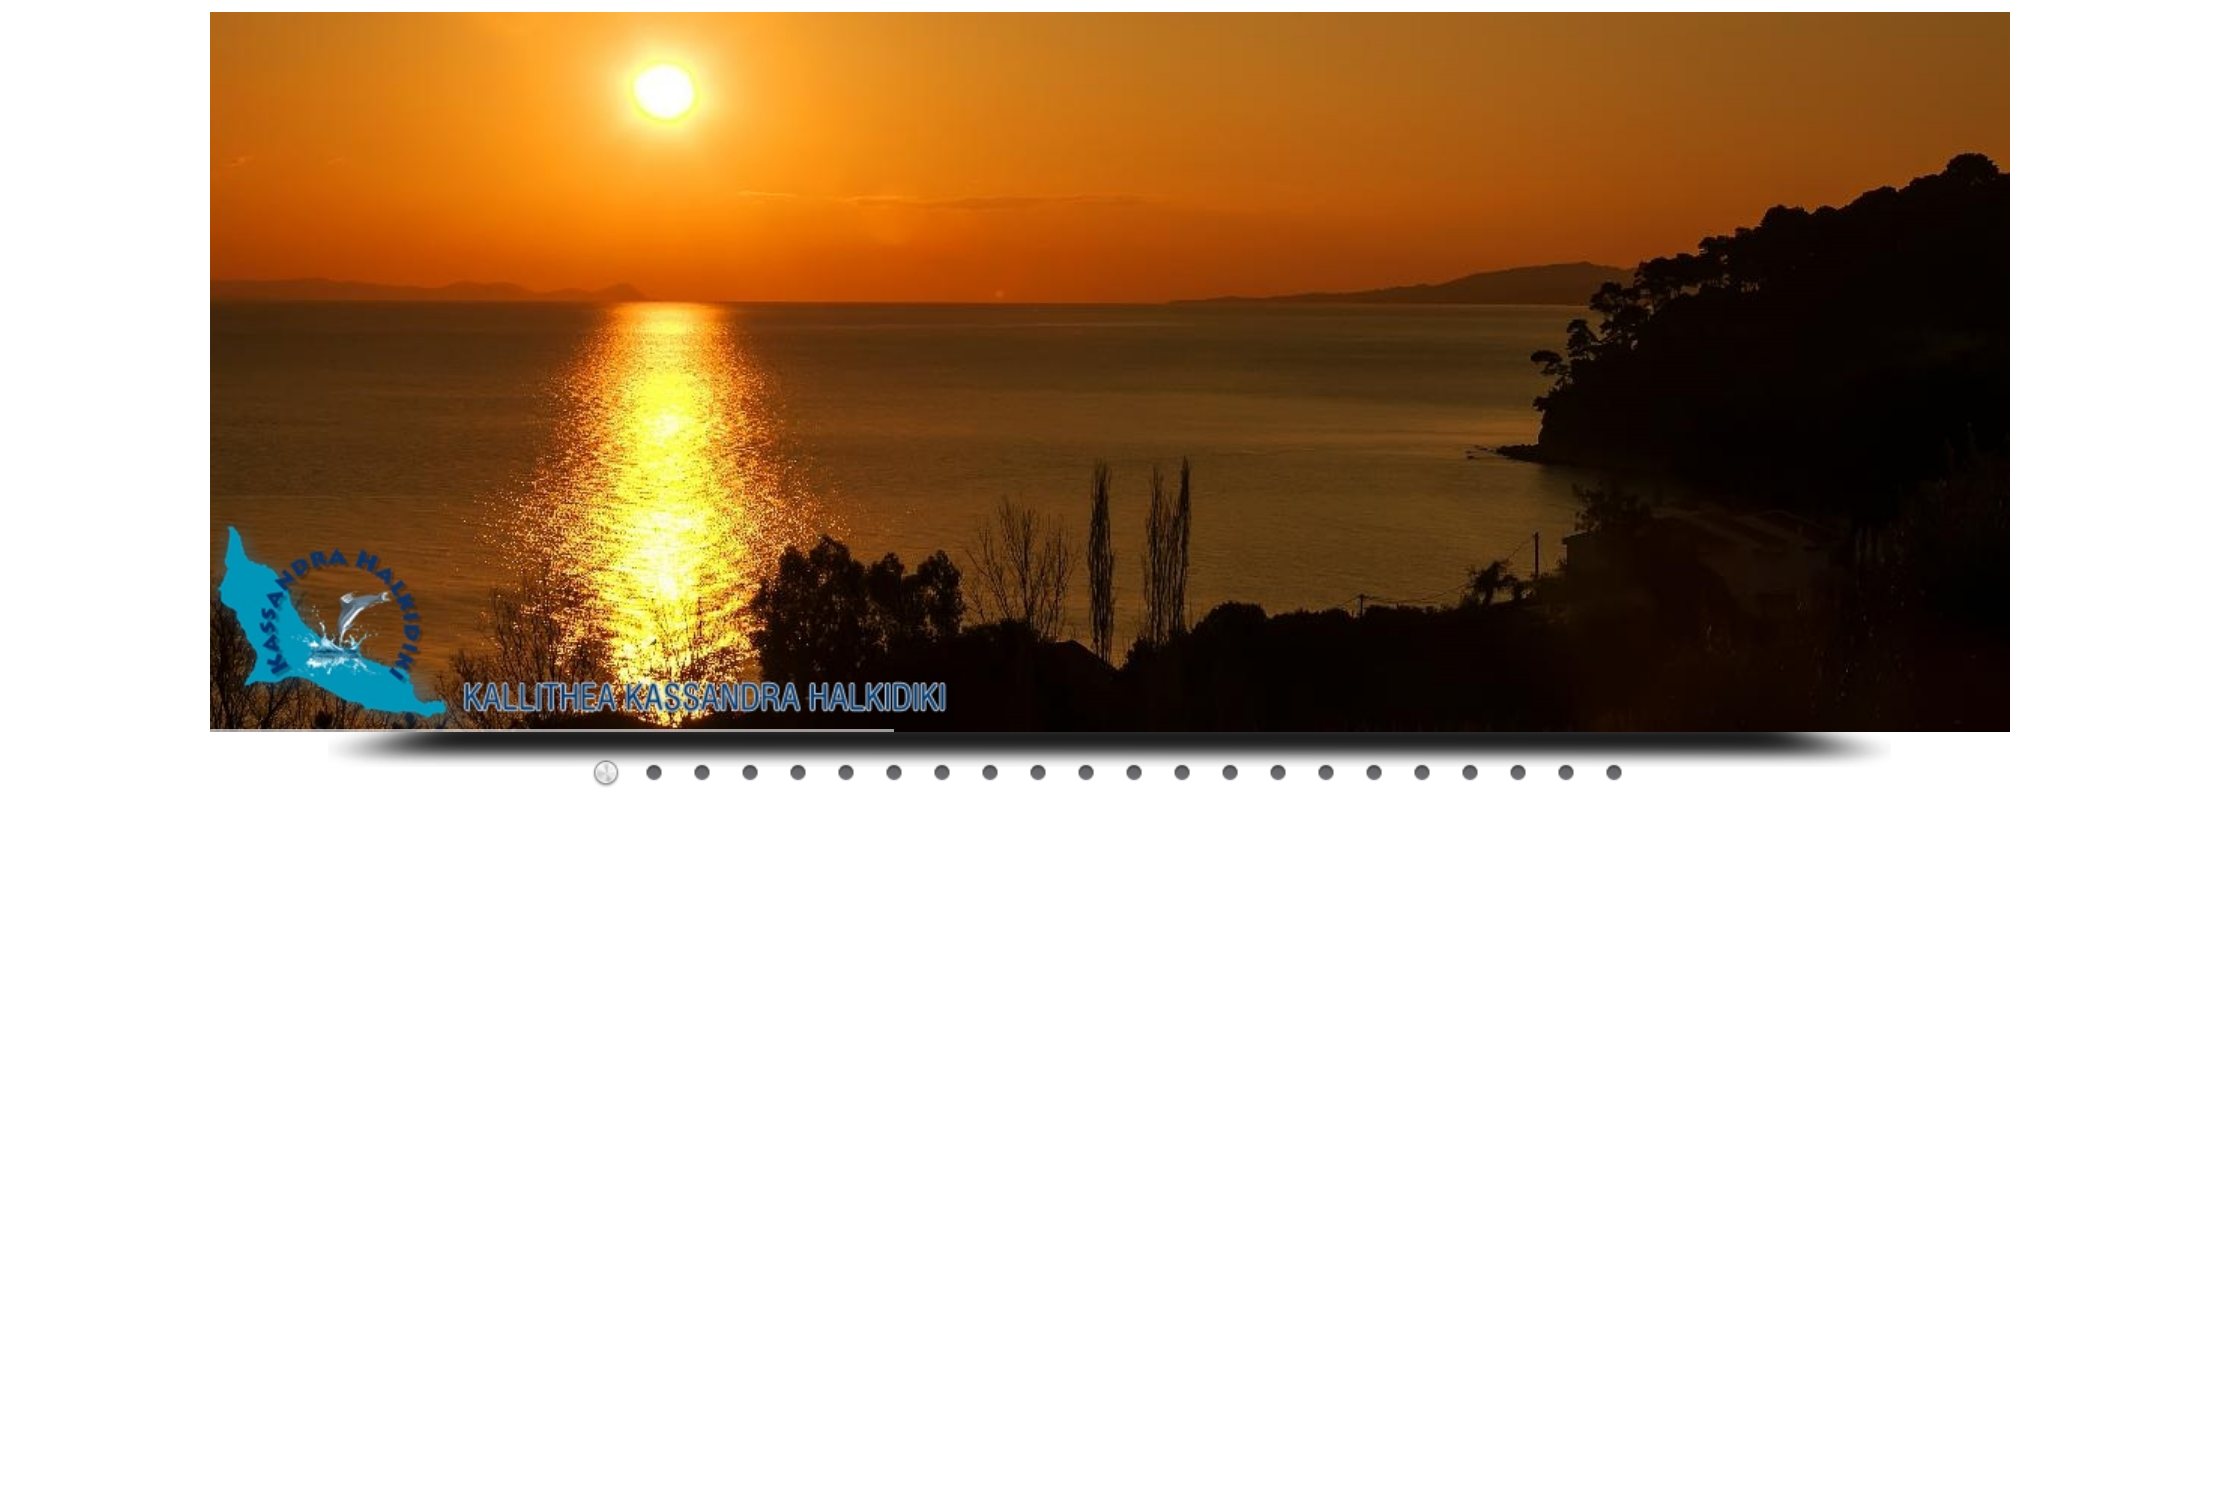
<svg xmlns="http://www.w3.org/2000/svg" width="2219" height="1511">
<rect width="100%" height="100%" fill="#fff"/>
<image href="1.png" x="210" y="12" width="1800" height="720"/>
<path fill="#ffffff99" d="M210 729h684v3H210z"/>
<image href="2.png" x="328" y="732" width="1563" height="35"/>
<image href="3.png" x="592" y="760" width="28" height="28"/>
<image href="4.png" x="646" y="764" width="16" height="17"/>
<image href="4.png" x="694" y="764" width="16" height="17"/>
<image href="5.png" x="742" y="764" width="16" height="17"/>
<image href="6.png" x="790" y="764" width="16" height="17"/>
<image href="6.png" x="838" y="764" width="16" height="17"/>
<image href="6.png" x="886" y="764" width="16" height="17"/>
<image href="6.png" x="934" y="764" width="16" height="17"/>
<image href="6.png" x="982" y="764" width="16" height="17"/>
<image href="6.png" x="1030" y="764" width="16" height="17"/>
<image href="5.png" x="1078" y="764" width="16" height="17"/>
<image href="5.png" x="1126" y="764" width="16" height="17"/>
<image href="5.png" x="1174" y="764" width="16" height="17"/>
<image href="7.png" x="1222" y="764" width="16" height="17"/>
<image href="8.png" x="1270" y="764" width="16" height="17"/>
<image href="9.png" x="1318" y="764" width="16" height="17"/>
<image href="10.png" x="1366" y="764" width="16" height="17"/>
<image href="9.png" x="1414" y="764" width="16" height="17"/>
<image href="9.png" x="1462" y="764" width="16" height="17"/>
<image href="11.png" x="1510" y="764" width="16" height="17"/>
<image href="9.png" x="1558" y="764" width="16" height="17"/>
<image href="9.png" x="1606" y="764" width="16" height="17"/>
</svg>
